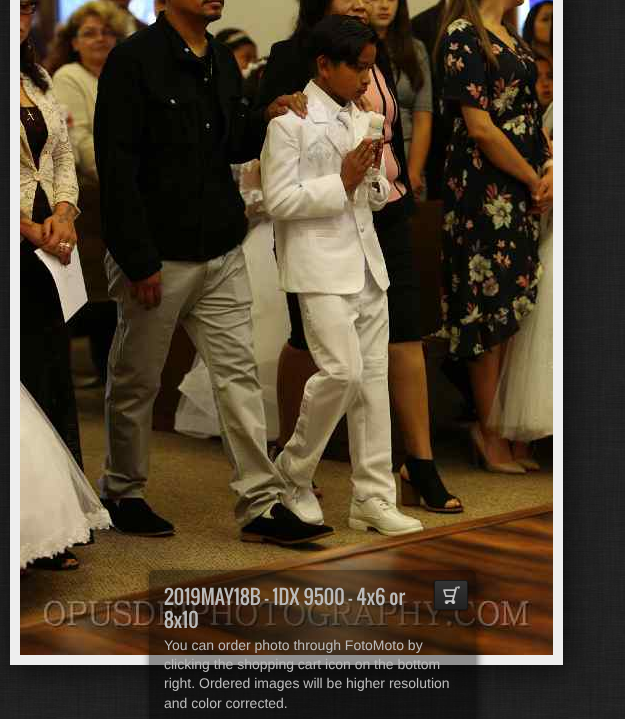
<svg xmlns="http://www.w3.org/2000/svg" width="625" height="719">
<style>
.a{font:19.6px Oswald;fill:#bbb}
.b{font:14px Liberation Sans;fill:#bbb}
</style>
<defs>
<clipPath id="clip1"><path d="M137 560h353v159h-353zm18 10h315c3.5 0 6 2.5 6 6v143h-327v-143c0-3.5 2.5-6 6-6z" clip-rule="evenodd"/></clipPath>
<linearGradient id="g1" gradientUnits="userSpaceOnUse" x1="451" y1="581" x2="451" y2="609"><stop offset="0" stop-color="#333"/><stop offset="1" stop-color="#222"/></linearGradient>
</defs>
<rect width="100%" height="100%" fill="#222"/>
<image href="1.png" x="0" y="0" width="625" height="719"/>
<path fill="#00000099" filter="blur(16px)" d="M13 -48h553v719H13z"/>
<path fill="#eee" d="M10 0h553v665H10z"/>
<image href="2.png" x="20" y="0" width="533" height="655"/>
<g clip-path="url(#clip1)">
<rect fill="#00000099" filter="blur(4px)" x="150" y="573" width="327" height="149" rx="6"/>
</g>
<path fill="#00000066" d="M155 570h315c3.5 0 6 2.5 6 6v143h-327v-143c0-3.5 2.5-6 6-6z"/>
<rect fill="#00000099" filter="blur(1px)" x="434" y="581" width="34" height="30" rx="2"/>
<rect fill="url(#g1)" x="435" y="581" width="32" height="28" rx="1"/>
<rect fill="none" stroke="#181818" x="434.5" y="580.5" width="33" height="29" rx="1.5"/>
<image href="3.png" x="443" y="586" width="17" height="18"/>
<text class="a" x="164" y="605">2019MAY18B - 1DX 9500 - 4x6 or</text>
<text class="a" x="164" y="628">8x10</text>
<text class="b" x="164" y="650">You can order photo through FotoMoto by</text>
<text class="b" x="164" y="669">clicking the shopping cart icon on the bottom</text>
<text class="b" x="164" y="688">right. Ordered images will be higher resolution</text>
<text class="b" x="164" y="708">and color corrected.</text>
</svg>
